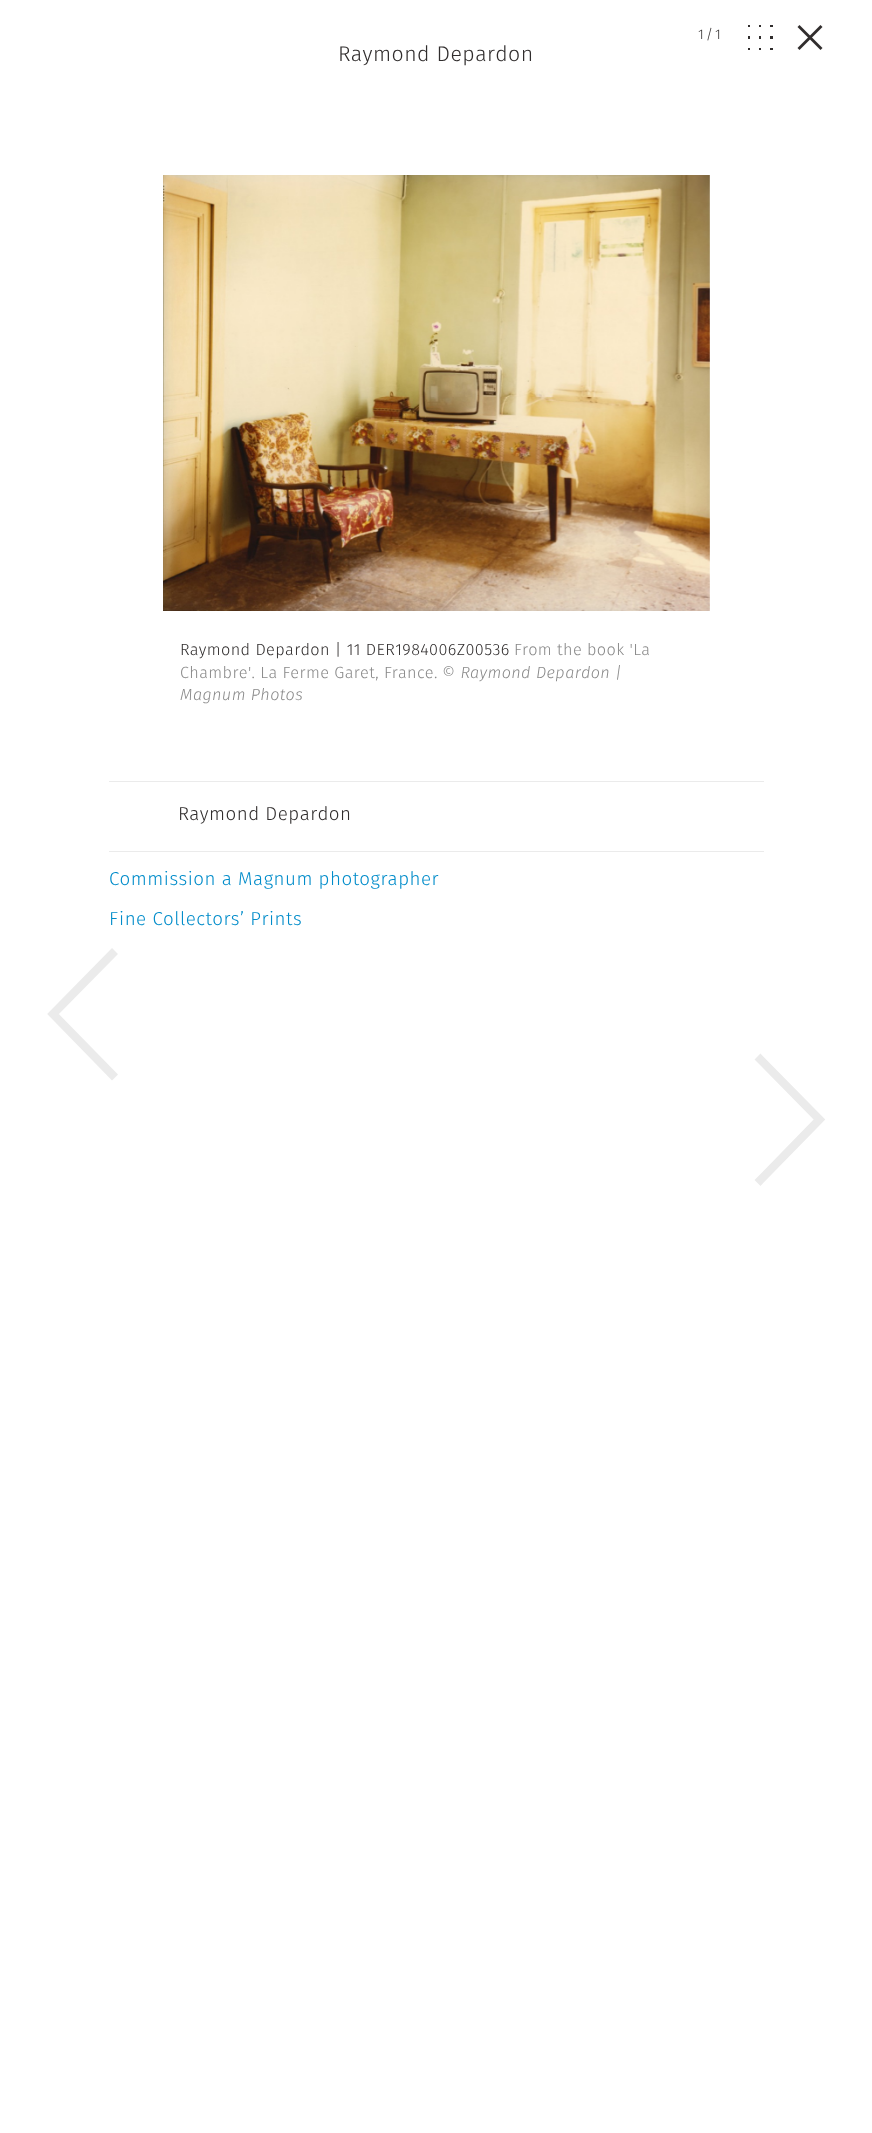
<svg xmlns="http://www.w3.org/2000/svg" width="872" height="2133">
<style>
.a{font:300 14px Fira Sans;letter-spacing:2px;fill:#302d2d}
.b{font:300 21.25px Fira Sans;letter-spacing:0.5px;fill:#302d2d}
.c{font:300 16.25px Fira Sans;letter-spacing:0.4px;fill:#302d2d}
.d{font:300 16.25px Fira Sans;letter-spacing:0.4px;fill:#898989}
.e{font:italic 300 16.25px Fira Sans;letter-spacing:0.4px;fill:#898989}
.f{font:300 18.75px Fira Sans;letter-spacing:0.5px;fill:#302d2d}
.g{font:300 18.75px Fira Sans;letter-spacing:0.5px;fill:#008cca}
</style>
<rect width="100%" height="100%" fill="#fff"/>
<image href="1.png" x="748" y="25" width="25" height="25"/>
<path fill="#302d2d" d="M799.5 25l23 23l-2 2l-23-23z"/>
<path fill="#302d2d" d="M797.5 48l23-23l2 2l-23 23z"/>
<image href="2.png" x="163" y="175" width="547" height="436"/>
<path fill="#ebebeb" d="M109 781h655v1H109z"/>
<path fill="#ebebeb" d="M109 851h655v1H109z"/>
<path fill="none" stroke="#ebebeb" stroke-width="8.3" d="M115 951l-62 63l62 63.5"/>
<path fill="none" stroke="#ebebeb" stroke-width="8.3" d="M757.5 1183l62-63.5l-62-63"/>
<text class="a" x="698" y="39">1/</text>
<text class="a" x="715" y="39">1</text>
<text class="b" x="338" y="61">Raymond Depardon</text>
<text class="c" x="180" y="655">Raymond Depardon | 11 DER1984006Z00536</text>
<text class="d" x="514" y="655">From the book 'La</text>
<text class="d" x="180" y="678">Chambre'. La Ferme Garet, France.</text>
<text class="e" x="442" y="678">© Raymond Depardon |</text>
<text class="e" x="180" y="700">Magnum Photos</text>
<text class="f" x="178" y="820">Raymond Depardon</text>
<text class="g" x="109" y="885">Commission a Magnum photographer</text>
<text class="g" x="109" y="925">Fine Collectors’ Prints</text>
</svg>
